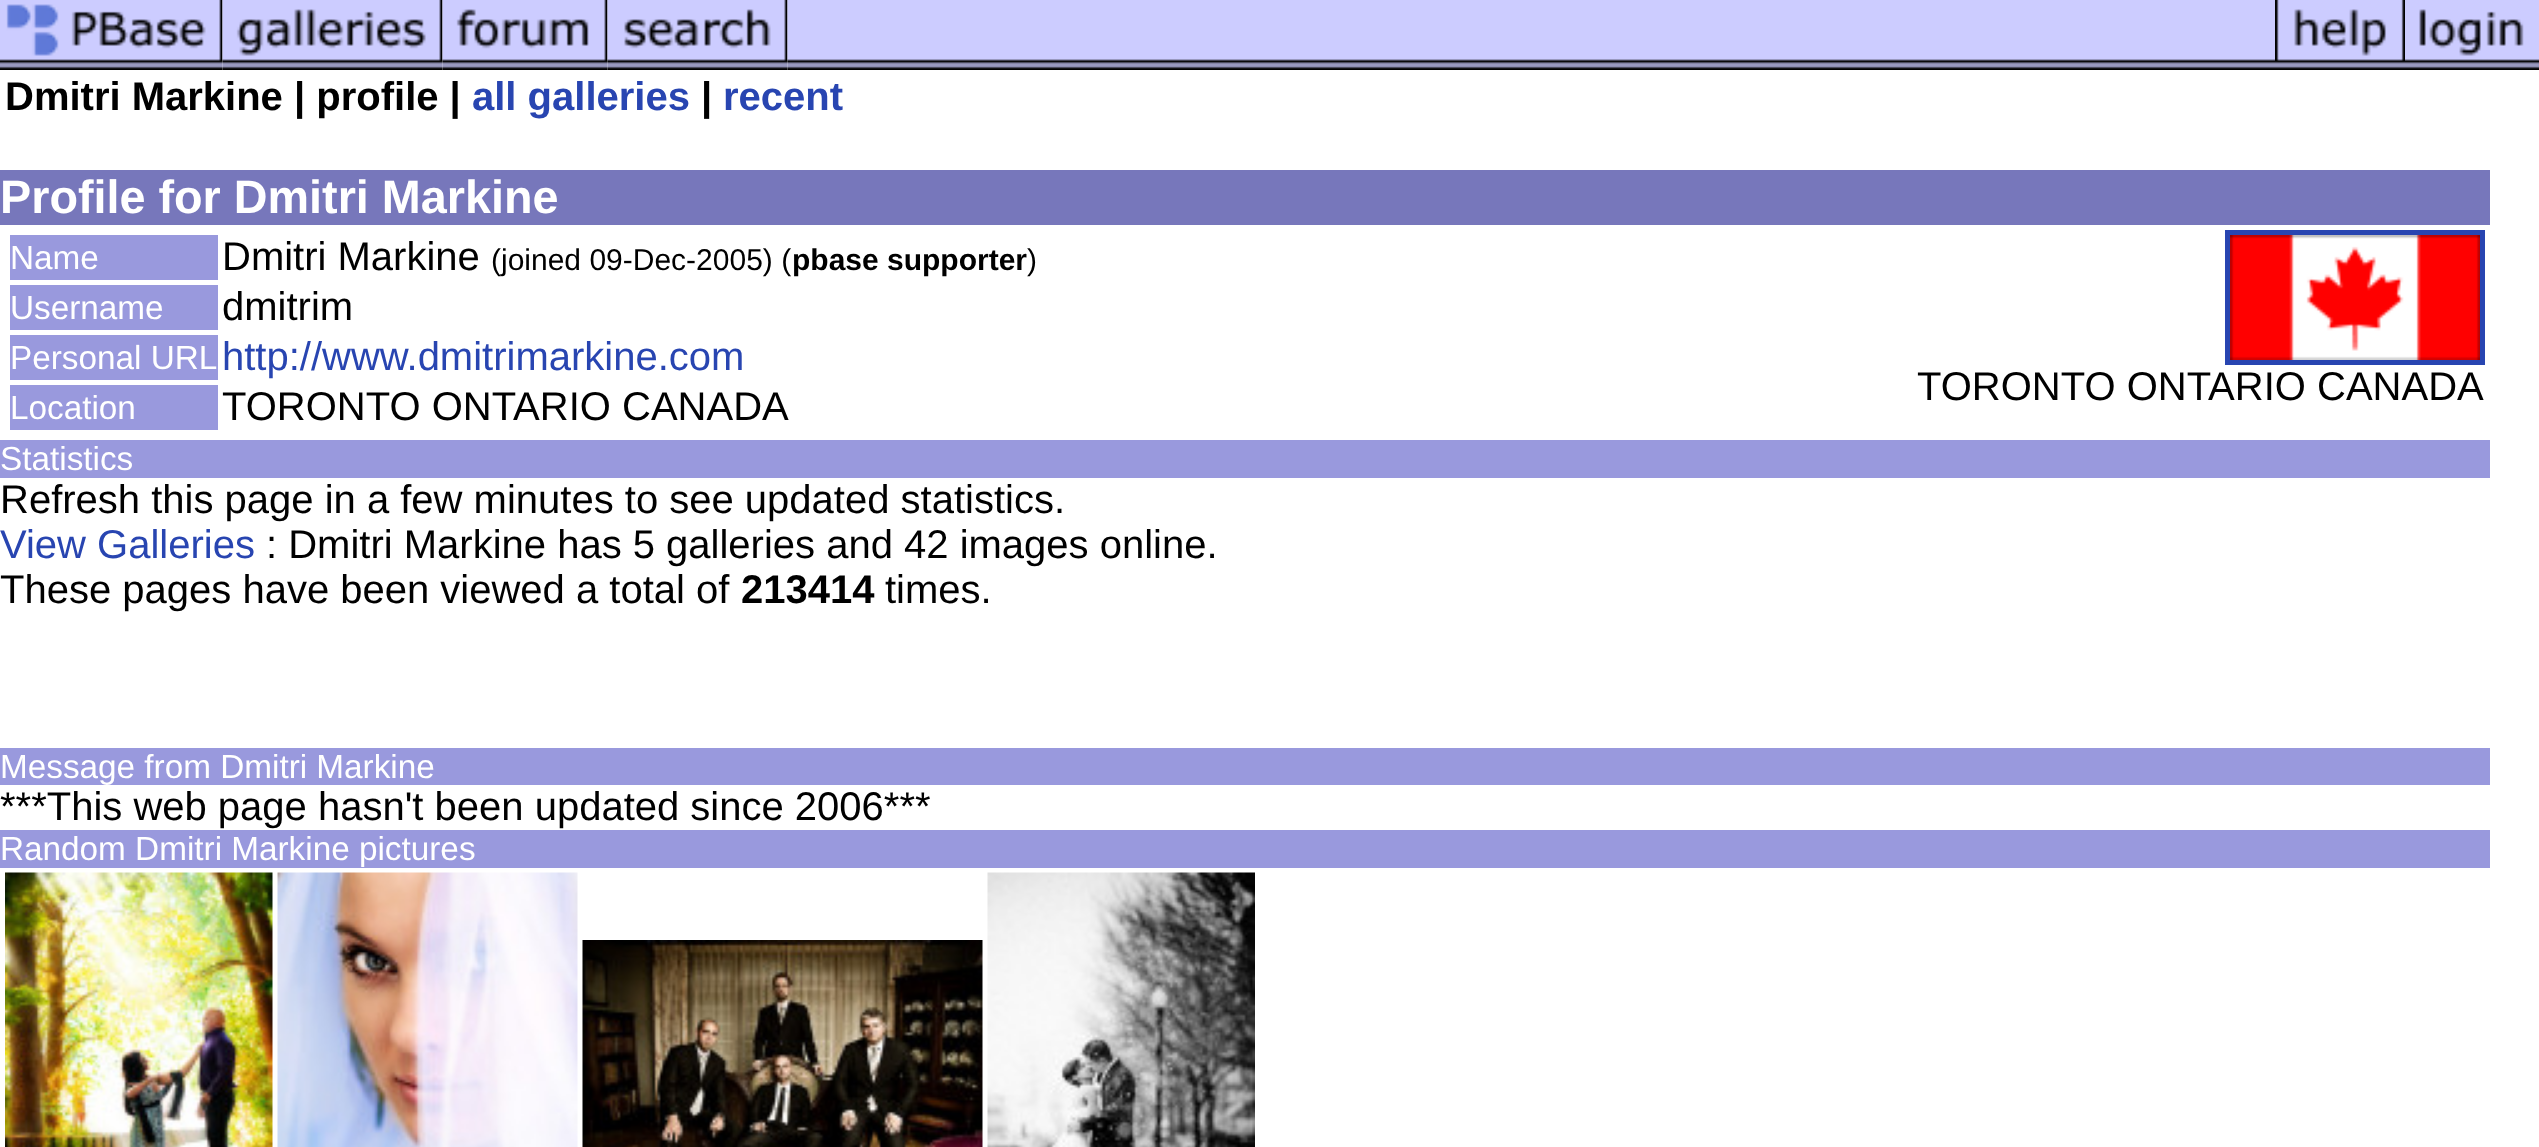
<svg xmlns="http://www.w3.org/2000/svg" width="2539" height="1147">
<style>
.a{font:bold 40px Liberation Sans;fill:#000}
.b{font:bold 40px Liberation Sans;fill:#2845b1}
.c{font:bold 46.75px Liberation Sans;fill:#fff}
.d{font:33.3px Liberation Sans;fill:#fff}
.e{font:40px Liberation Sans;fill:#000}
.f{font:30px Liberation Sans;fill:#000}
.g{font:bold 30px Liberation Sans;fill:#000}
.h{font:40px Liberation Sans;fill:#2845b1}
</style>
<rect width="100%" height="100%" fill="#fff"/>
<image href="1.png" x="0" y="0" width="223" height="70"/>
<image href="2.png" x="222" y="0" width="221" height="70"/>
<image href="3.png" x="442" y="0" width="166" height="70"/>
<image href="4.png" x="607" y="0" width="181" height="70"/>
<image href="5.png" x="787" y="0" width="1488" height="70"/>
<image href="6.png" x="2275" y="0" width="130" height="70"/>
<image href="7.png" x="2405" y="0" width="134" height="70"/>
<path fill="#77b" d="M0 170h2490v55H0z"/>
<path fill="#99d" d="M10 235h208v45H10z"/>
<path fill="#99d" d="M10 285h208v45H10z"/>
<path fill="#99d" d="M10 335h208v45H10z"/>
<path fill="#99d" d="M10 385h208v45H10z"/>
<path fill="none" stroke="#2845b1" stroke-width="5" d="M2227.5 232.5h255v130H2227.5z"/>
<image href="8.png" x="2230" y="235" width="250" height="125"/>
<path fill="#99d" d="M0 440h2490v38H0z"/>
<path fill="#99d" d="M0 748h2490v37H0z"/>
<path fill="#99d" d="M0 830h2490v38H0z"/>
<image href="9.png" x="5" y="872" width="268" height="275"/>
<image href="10.png" x="277" y="872" width="301" height="275"/>
<image href="11.png" x="582" y="940" width="401" height="207"/>
<image href="12.png" x="987" y="872" width="268" height="275"/>
<text class="a" x="5" y="110">Dmitri Markine | profile |</text>
<text class="b" x="472" y="110">all galleries</text>
<text class="a" x="701" y="110">|</text>
<text class="b" x="723" y="110">recent</text>
<text class="c" x="0" y="213">Profile for Dmitri Markine</text>
<text class="d" x="10" y="269">Name</text>
<text class="e" x="222" y="270">Dmitri Markine</text>
<text class="f" x="491" y="270">(joined 09-Dec-2005) (</text>
<text class="g" x="792" y="270">pbase supporter</text>
<text class="f" x="1027" y="270">)</text>
<text class="d" x="10" y="319">Username</text>
<text class="e" x="222" y="320">dmitrim</text>
<text class="d" x="10" y="369">Personal URL</text>
<text class="h" x="222" y="370">http://www.dmitrimarkine.com</text>
<text class="d" x="10" y="419">Location</text>
<text class="e" x="222" y="420">TORONTO ONTARIO CANADA</text>
<text class="e" x="1917" y="400">TORONTO ONTARIO CANADA</text>
<text class="d" x="0" y="470">Statistics</text>
<text class="e" x="0" y="513">Refresh this page in a few minutes to see updated statistics.</text>
<text class="h" x="0" y="558">View Galleries</text>
<text class="e" x="266" y="558">: Dmitri Markine has 5 galleries and 42 images online.</text>
<text class="e" x="0" y="603">These pages have been viewed a total of</text>
<text class="a" x="741" y="603">213414</text>
<text class="e" x="885" y="603">times.</text>
<text class="d" x="0" y="778">Message from Dmitri Markine</text>
<text class="e" x="0" y="820">***This web page hasn't been updated since 2006***</text>
<text class="d" x="0" y="860">Random Dmitri Markine pictures</text>
</svg>
